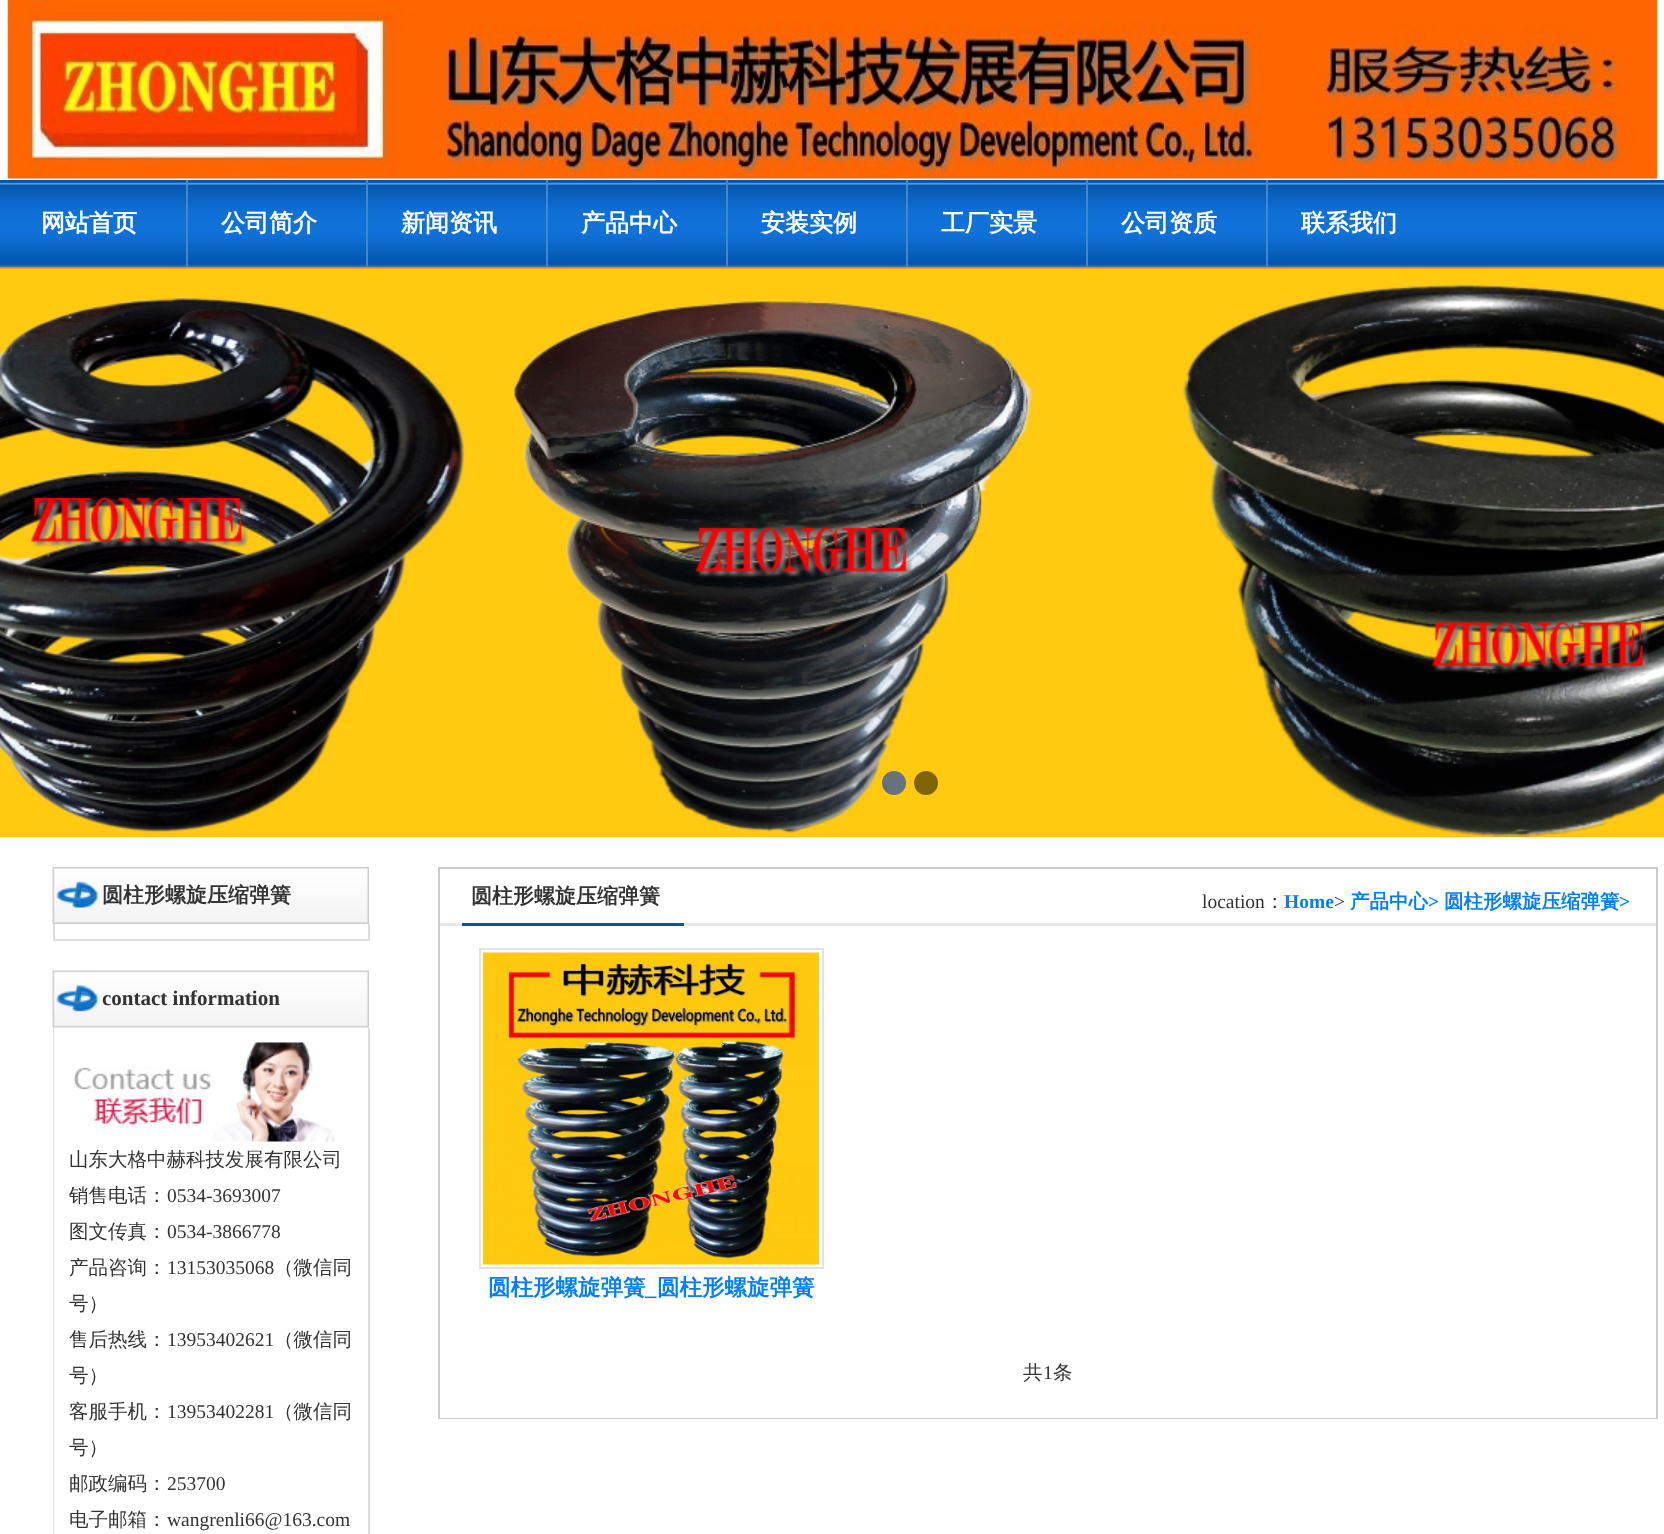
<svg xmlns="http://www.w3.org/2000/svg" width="1664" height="1534">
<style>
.a{font:bold 24px WenQuanYi Zen Hei;fill:#fff}
.b{font:bold 21px WenQuanYi Zen Hei;fill:#333}
.c{font:bold 21px Liberation Serif;fill:#333}
.d{font:500 19.5px WenQuanYi Zen Hei;fill:#333}
.e{font:19.5px Liberation Serif;fill:#333}
.f{font:bold 19.5px Liberation Serif;fill:#007eff}
.g{font:bold 19.5px WenQuanYi Zen Hei;fill:#007eff}
.h{font:bold 22.5px WenQuanYi Zen Hei;fill:#007eff}
.i{font:bold 22.5px Liberation Serif;fill:#007eff}
</style>
<rect width="100%" height="100%" fill="#fff"/>
<image href="1.png" x="7" y="0" width="1651" height="179"/>
<image href="2.png" x="0" y="180" width="1664" height="87"/>
<path fill="#3e89c7" d="M186 180h2v87H186z"/>
<path fill="#3e89c7" d="M366 180h2v87H366z"/>
<path fill="#3e89c7" d="M546 180h2v87H546z"/>
<path fill="#3e89c7" d="M726 180h2v87H726z"/>
<path fill="#3e89c7" d="M906 180h2v87H906z"/>
<path fill="#3e89c7" d="M1086 180h2v87H1086z"/>
<path fill="#3e89c7" d="M1266 180h2v87H1266z"/>
<image href="3.png" x="0" y="267" width="1664" height="570"/>
<circle fill="#66727e" stroke="#66727e" stroke-width="2" cx="894" cy="783" r="11"/>
<circle fill="#806508" stroke="#806508" stroke-width="2" cx="926" cy="783" r="11"/>
<image href="4.png" x="52" y="867" width="317" height="57"/>
<path fill="#ddd" d="M368 924h2v17H368z"/>
<path fill="#ddd" d="M53 939h316v2H53z"/>
<path fill="#ddd" d="M53 924h2v17H53z"/>
<image href="5.png" x="52" y="970" width="317" height="58"/>
<path fill="#ddd" d="M368 1028h2v506H368z"/>
<path fill="#ddd" d="M53 1028h1v506H53z"/>
<image href="6.png" x="72" y="1042" width="263" height="100"/>
<path fill="#ccc" d="M438 867h1220v2H438z"/>
<path fill="#ccc" d="M1656 867h2v552H1656z"/>
<path fill="#ccc" d="M438 867h2v59H438z"/>
<path fill="#e8e8e8" d="M440 923h1216v3H440z"/>
<path fill="#0055a5" d="M462 923h222v3H462z"/>
<path fill="#ccc" d="M438 1418h1220v1H438z"/>
<path fill="#ccc" d="M438 926h2v493H438z"/>
<path fill="none" stroke="#e3e3e3" stroke-width="2" d="M480 949h343v319H480z"/>
<image href="7.png" x="483" y="952" width="336" height="313"/>
<text class="a" x="41" y="231">网站首页</text>
<text class="a" x="221" y="231">公司简介</text>
<text class="a" x="401" y="231">新闻资讯</text>
<text class="a" x="581" y="231">产品中心</text>
<text class="a" x="761" y="231">安装实例</text>
<text class="a" x="941" y="231">工厂实景</text>
<text class="a" x="1121" y="231">公司资质</text>
<text class="a" x="1301" y="231">联系我们</text>
<text class="b" x="102" y="902">圆柱形螺旋压缩弹簧</text>
<text class="c" x="102" y="1005">contact information</text>
<text class="d" x="69" y="1166">山东大格中赫科技发展有限公司</text>
<text class="d" x="69" y="1202">销售电话：</text>
<text class="e" x="167" y="1202">0534-3693007</text>
<text class="d" x="69" y="1238">图文传真：</text>
<text class="e" x="167" y="1238">0534-3866778</text>
<text class="d" x="69" y="1274">产品咨询：</text>
<text class="e" x="167" y="1274">13153035068</text>
<text class="d" x="274" y="1274">（微信同</text>
<text class="d" x="69" y="1310">号）</text>
<text class="d" x="69" y="1346">售后热线：</text>
<text class="e" x="167" y="1346">13953402621</text>
<text class="d" x="274" y="1346">（微信同</text>
<text class="d" x="69" y="1382">号）</text>
<text class="d" x="69" y="1418">客服手机：</text>
<text class="e" x="167" y="1418">13953402281</text>
<text class="d" x="274" y="1418">（微信同</text>
<text class="d" x="69" y="1454">号）</text>
<text class="d" x="69" y="1490">邮政编码：</text>
<text class="e" x="167" y="1490">253700</text>
<text class="d" x="69" y="1526">电子邮箱：</text>
<text class="e" x="167" y="1526">wangrenli66@163.com</text>
<text class="b" x="471" y="903">圆柱形螺旋压缩弹簧</text>
<text class="e" x="1202" y="908">location</text>
<text class="d" x="1265" y="908">：</text>
<text class="f" x="1284" y="908">Home</text>
<text class="e" x="1334" y="908">&gt;</text>
<text class="g" x="1350" y="908">产品中心</text>
<text class="f" x="1428" y="908">&gt;</text>
<text class="g" x="1444" y="908">圆柱形螺旋压缩弹簧</text>
<text class="f" x="1619" y="908">&gt;</text>
<text class="h" x="488" y="1295">圆柱形螺旋弹簧</text>
<text class="i" x="645" y="1295">_</text>
<text class="h" x="657" y="1295">圆柱形螺旋弹簧</text>
<text class="d" x="1023" y="1379">共</text>
<text class="e" x="1043" y="1379">1</text>
<text class="d" x="1053" y="1379">条</text>
</svg>
